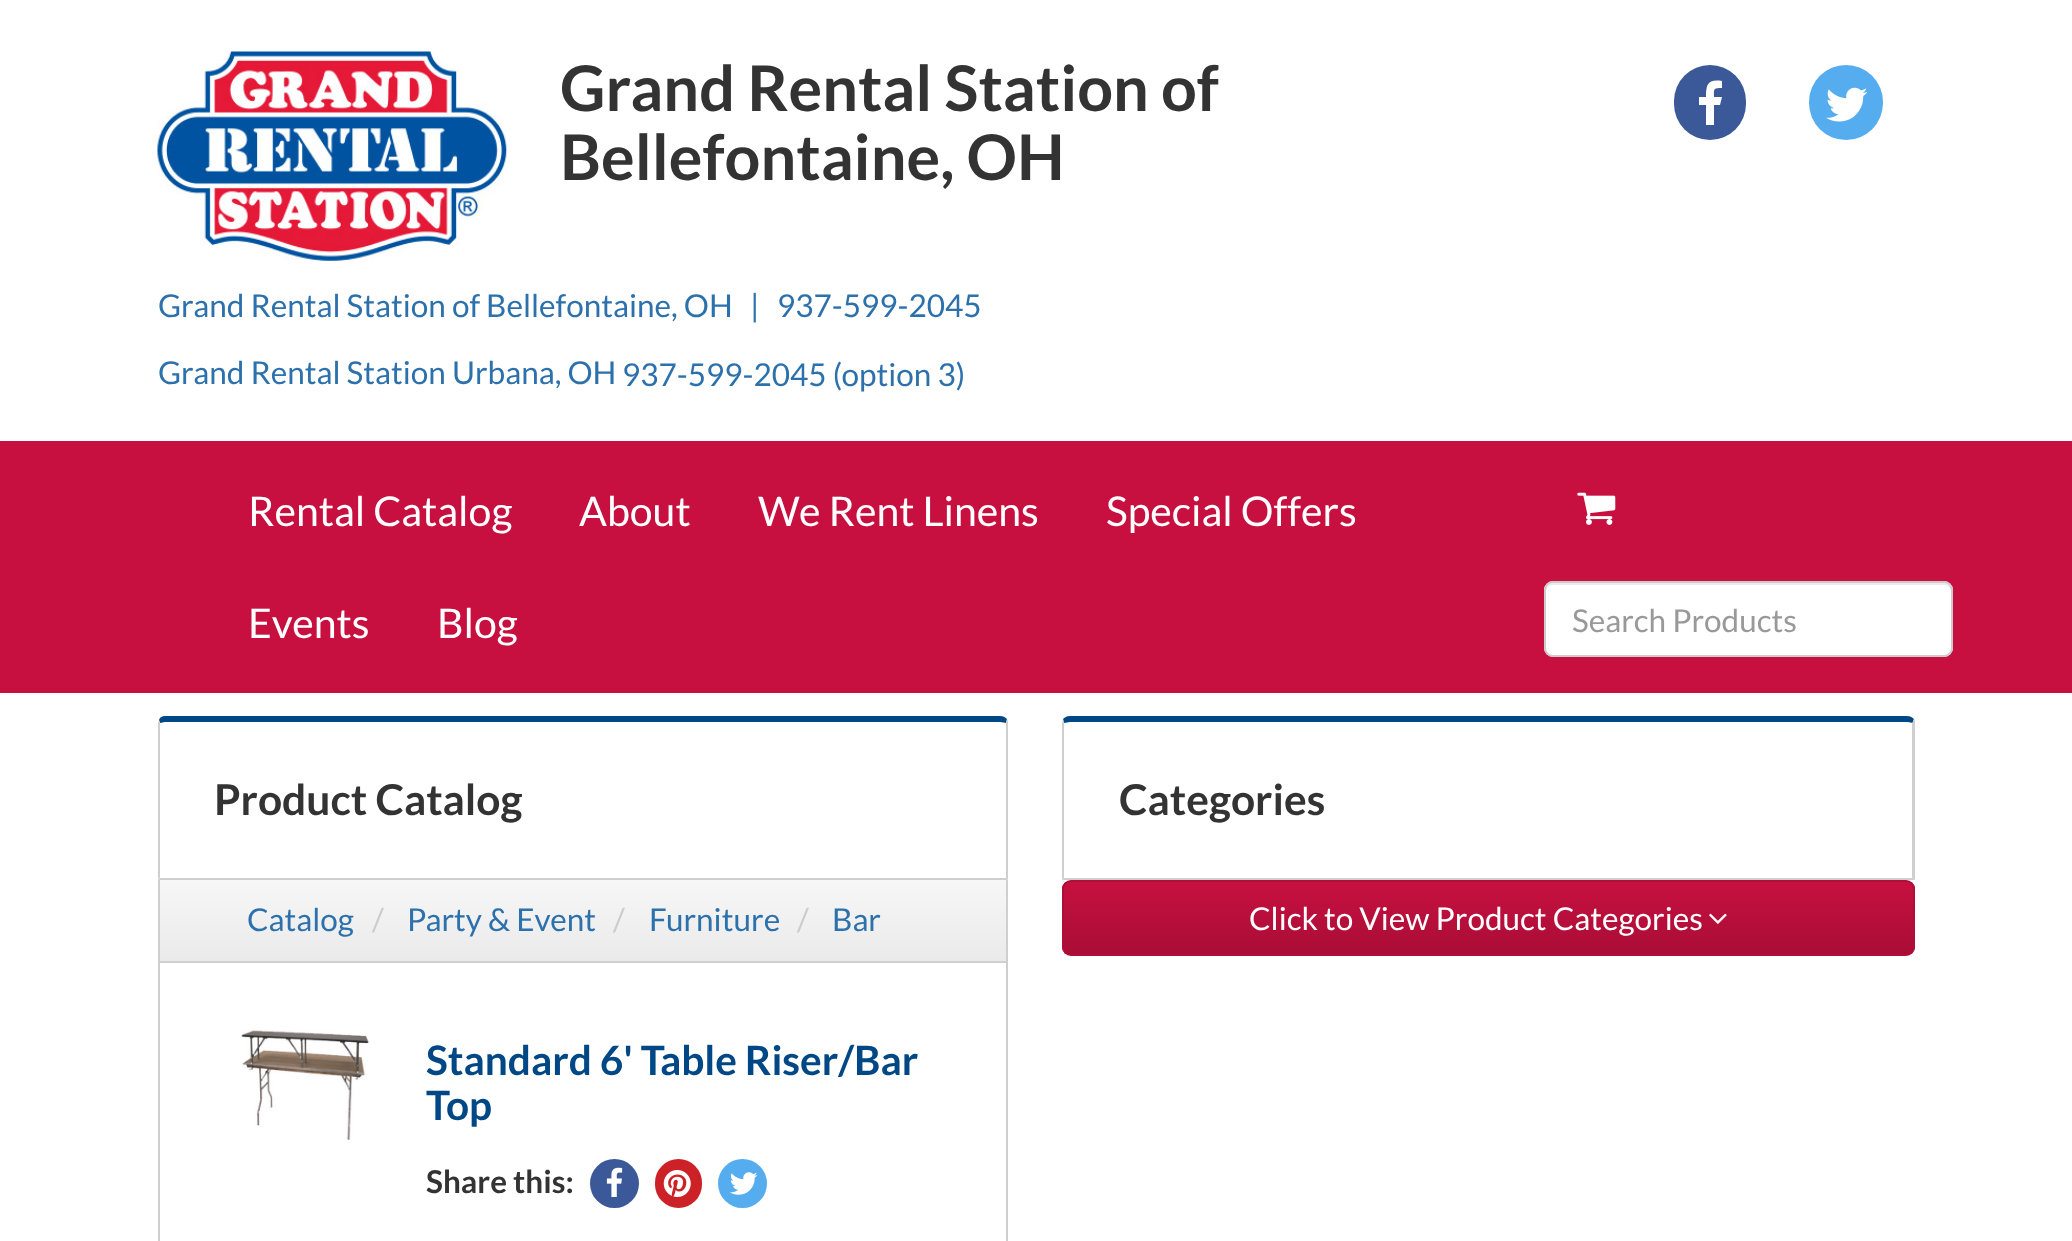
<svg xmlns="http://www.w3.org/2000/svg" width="2072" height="1241">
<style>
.a{font:bold 63px Lato;fill:#333}
.b{font:31.5px Lato;fill:#2d71ac}
.c{font:41px Lato;fill:#fff}
.d{font:31.5px Lato;fill:#999}
.e{font:bold 42.5px Lato;fill:#333}
.f{font:31.5px Lato;fill:#ccc}
.g{font:bold 40.6px Lato;fill:#004785}
.h{font:bold 31.5px Lato;fill:#333}
.i{font:31.5px Lato;fill:#fff}
</style>
<defs>
<linearGradient id="g1" gradientUnits="userSpaceOnUse" x1="583" y1="880" x2="583" y2="961"><stop offset="0" stop-color="#f7f7f7"/><stop offset="1" stop-color="#eaeaea"/></linearGradient>
<clipPath id="clip1"><rect x="1062" y="880" width="853" height="76" rx="9"/></clipPath>
<linearGradient id="g2" gradientUnits="userSpaceOnUse" x1="1488" y1="882" x2="1488" y2="954"><stop offset="0" stop-color="#c71040"/><stop offset="1" stop-color="#a90d36"/></linearGradient>
</defs>
<rect width="100%" height="100%" fill="#fff"/>
<image href="1.png" x="157" y="51" width="350" height="210"/>
<rect fill="#3b5998" x="1674" y="65" width="72" height="75" rx="36"/>
<path fill="#fff" d="M1722 81v7c-9 0-8 1-8 9h8l-2 8h-6v20h-8v-20h-7v-8h7c0-13 2-18 16-16z"/>
<rect fill="#55acee" x="1809" y="65" width="74" height="75" rx="37"/>
<image href="2.png" x="1826" y="87" width="42" height="35"/>
<path fill="#c71040" d="M0 441h2072v252H0z"/>
<image href="3.png" x="1577" y="492" width="39" height="33"/>
<rect fill="#fff" x="1544" y="581" width="409" height="76" rx="9"/>
<path fill="#ececec" d="M1552 585h392c4 0 7 3 7 7v-2c0-4-3-7-7-7h-391c-4 0-7 3-7 7v2c0-4 3-7 6-7z"/>
<rect fill="none" stroke="#ccc" stroke-width="2" x="1545" y="582" width="407" height="74" rx="8"/>
<path fill="#004785" d="M165 716c-3 0-5 1-6 4l1 3l5-1h835c2 0 5 1 6 1l1-4c-2-2-4-3-7-3z"/>
<path fill="#cfcfcf" d="M1008 880v-157c0-1 0-3-1-4l-1 4v155z"/>
<path fill="#cfcfcf" d="M1008 880h-850l2-3v1h846z"/>
<path fill="#cfcfcf" d="M159 720l-1 3v156l2-2v-154z"/>
<path fill="url(#g1)" d="M160 880h846v81H160z"/>
<path fill="#cfcfcf" d="M1006 880h2v361H1006z"/>
<path fill="#cfcfcf" d="M158 961h850v2H158z"/>
<path fill="#cfcfcf" d="M158 880h2v361H158z"/>
<image href="4.png" x="241" y="1030" width="128" height="110"/>
<circle fill="#3b5998" cx="614.5" cy="1183.5" r="24.5"/>
<image href="5.png" x="606" y="1167" width="17" height="30"/>
<rect fill="#cc2127" x="655" y="1159" width="47" height="49" rx="23.5"/>
<image href="6.png" x="663" y="1170" width="28" height="27"/>
<circle fill="#55acee" cx="742.5" cy="1183.5" r="24.5"/>
<image href="7.png" x="730" y="1172" width="28" height="23"/>
<path fill="#004785" d="M1070 716c-3 0-5 1-7 3l1 4l6-1h837c3 0 5 1 5 1v1l2-5c-2-2-4-3-7-3z"/>
<path fill="#cfcfcf" d="M1915 721l-1-2l-2 5v153l3 3z"/>
<path fill="#cfcfcf" d="M1915 880l-3-3v1h-848l-2 2z"/>
<path fill="#cfcfcf" d="M1062 880l2-2v-155l-1-4l-1 4z"/>
<g clip-path="url(#clip1)">
<path fill="url(#g2)" d="M1062 882h853v72H1062z"/>
</g>
<rect fill="none" stroke="#af0e38" stroke-width="2" x="1063" y="881" width="851" height="74" rx="8"/>
<image href="8.png" x="1709" y="913" width="18" height="11"/>
<text class="a" x="560" y="111">Grand Rental Station of</text>
<text class="a" x="560" y="180">Bellefontaine, OH</text>
<text class="b" x="158" y="317">Grand Rental Station of Bellefontaine, OH</text>
<text class="b" x="750" y="317">|</text>
<text class="b" x="777" y="317">937-599-2045</text>
<text class="b" x="158" y="384">Grand Rental Station Urbana, OH</text>
<text class="b" x="622" y="386">937-599-2045 (option 3)</text>
<text class="c" x="248" y="526">Rental Catalog</text>
<text class="c" x="579" y="526">About</text>
<text class="c" x="758" y="526">We Rent Linens</text>
<text class="c" x="1106" y="526">Special Offers</text>
<text class="c" x="248" y="638">Events</text>
<text class="c" x="437" y="638">Blog</text>
<text class="d" x="1572" y="632">Search Products</text>
<text class="e" x="214" y="815">Product Catalog</text>
<text class="b" x="247" y="931">Catalog</text>
<text class="f" x="372" y="931">/</text>
<text class="b" x="407" y="931">Party &amp; Event</text>
<text class="f" x="613" y="931">/</text>
<text class="b" x="649" y="931">Furniture</text>
<text class="f" x="797" y="931">/</text>
<text class="b" x="832" y="931">Bar</text>
<text class="g" x="426" y="1075">Standard 6' Table Riser/Bar</text>
<text class="g" x="426" y="1120">Top</text>
<text class="h" x="426" y="1193">Share this:</text>
<text class="e" x="1119" y="815">Categories</text>
<text class="i" x="1249" y="930">Click to View Product Categories</text>
</svg>
